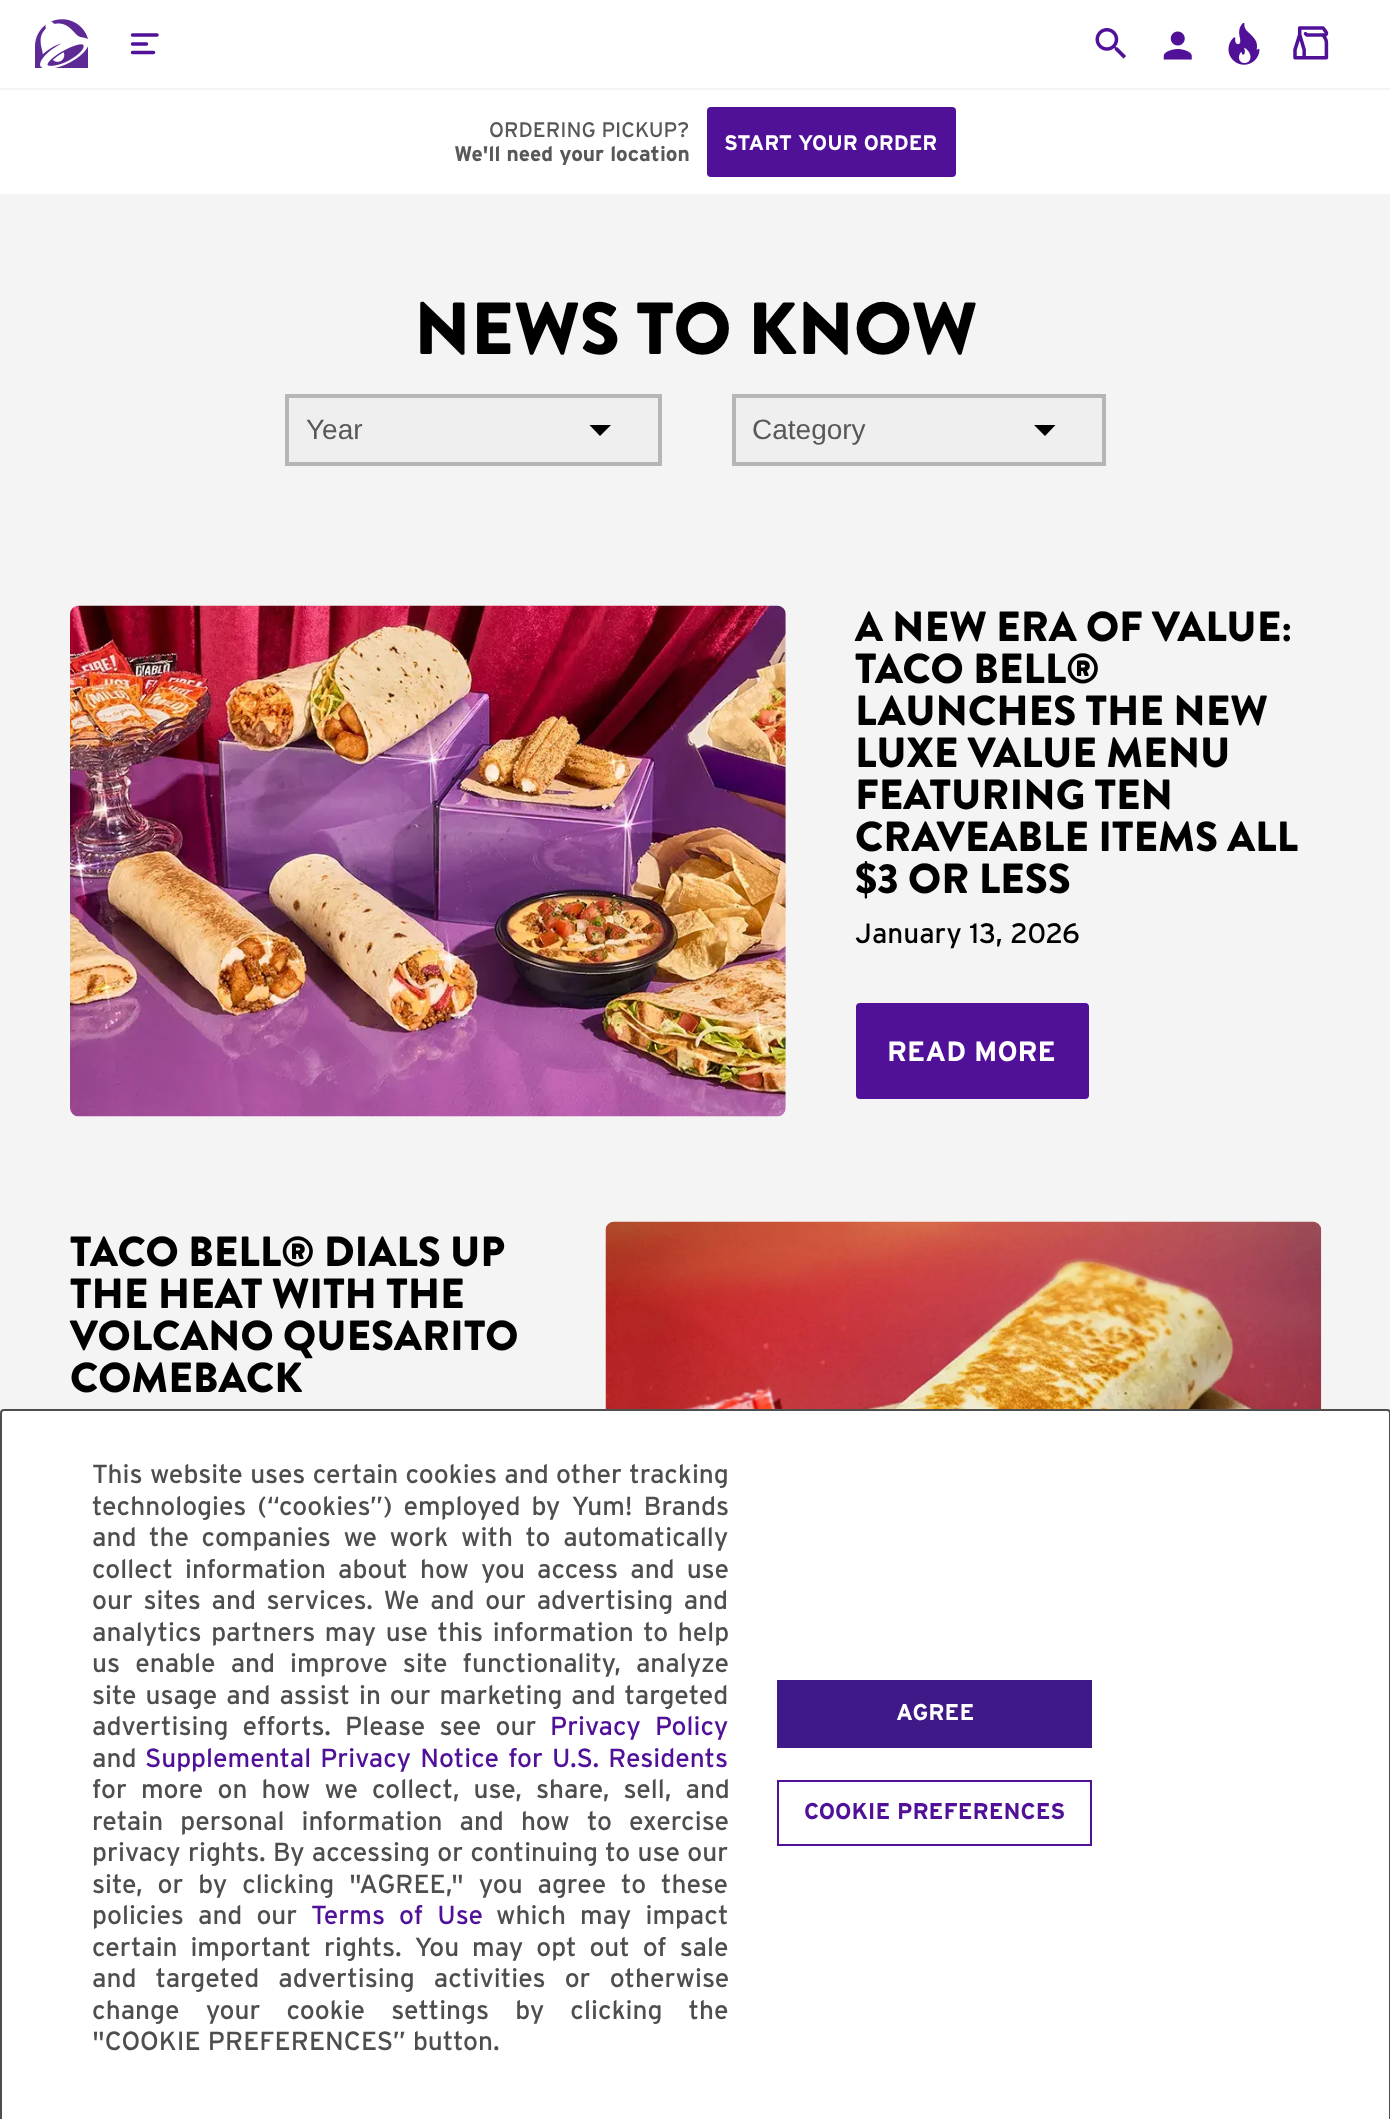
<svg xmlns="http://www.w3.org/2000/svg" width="1390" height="2119">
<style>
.a{font:21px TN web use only;fill:#585858}
.b{font:bold 21px TN web use only;fill:#585858}
.c{font:bold 21px TN web use only;fill:#fff}
.d{font:900 73.5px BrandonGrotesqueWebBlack;fill:#000}
.e{font:28px Liberation Sans;fill:#585858}
.f{font:900 42px BrandonGrotesqueWebBlack;fill:#000}
.g{font:28px TN web use only;fill:#000}
.h{font:bold 28px TN web use only;fill:#fff}
.i{font:26.25px TN web use only;fill:#4e4e4e}
.j{font:26.25px TN web use only;fill:#501098}
.k{font:bold 22.75px TN web use only;fill:#fff}
.l{font:bold 22.75px TN web use only;fill:#501098}
</style>
<rect width="100%" height="100%" fill="#fff"/>
<path fill="#f4f4f4" d="M0 88h1390v2H0z"/>
<image href="1.png" x="35" y="19" width="53" height="49"/>
<path fill="none" stroke="#501098" stroke-width="3.5" stroke-linecap="round" d="M132.5 35h24.5m-24.5 9h14m-14 8.5h21"/>
<image href="2.png" x="1095" y="28" width="31" height="31"/>
<image href="3.png" x="1163" y="31" width="29" height="29"/>
<image href="4.png" x="1228" y="23" width="32" height="42"/>
<image href="5.png" x="1293" y="26" width="36" height="34"/>
<rect fill="#501098" x="707" y="107" width="249" height="70" rx="4"/>
<path fill="#f4f4f4" d="M0 194h1390v1219H0z"/>
<path fill="#efefef" stroke="#b6b6b6" stroke-width="4" d="M287 396h373v68H287z"/>
<path fill="#000" d="M589.5 425l10.5 11l11-11z"/>
<path fill="#efefef" stroke="#b6b6b6" stroke-width="4" d="M734 396h370v68H734z"/>
<path fill="#000" d="M1034 425l11 11l10.5-11z"/>
<image href="6.png" x="70" y="605" width="716" height="512"/>
<rect fill="#501098" stroke="#501098" stroke-width="4" x="858" y="1005" width="229" height="92" rx="2"/>
<image href="7.png" x="605" y="1221" width="717" height="188"/>
<rect fill="#fff" stroke="#4e4e4e" stroke-width="2" x="1" y="1410" width="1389" height="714" rx="3"/>
<path fill="#401989" d="M777 1680h315v68H777z"/>
<path fill="none" stroke="#501098" stroke-width="2" d="M778 1781h313v64H778z"/>
<text class="a" x="489" y="137">ORDERING PICKUP?</text>
<text class="b" x="454" y="161">We'll need your location</text>
<text class="c" x="724" y="150">START YOUR ORDER</text>
<text class="d" x="414" y="354">NEWS TO KNOW</text>
<text class="e" x="306" y="439">Year</text>
<text class="e" x="752" y="439">Category</text>
<text class="f" x="855" y="641">A NEW ERA OF VALUE:</text>
<text class="f" x="855" y="683">TACO BELL®</text>
<text class="f" x="855" y="725">LAUNCHES THE NEW</text>
<text class="f" x="855" y="767">LUXE VALUE MENU</text>
<text class="f" x="855" y="809">FEATURING TEN</text>
<text class="f" x="855" y="851">CRAVEABLE ITEMS ALL</text>
<text class="f" x="855" y="893">$3 OR LESS</text>
<text class="g" x="855" y="943">January 13, 2026</text>
<text class="h" x="887" y="1061">READ MORE</text>
<text class="f" x="70" y="1266">TACO BELL® DIALS UP</text>
<text class="f" x="70" y="1308">THE HEAT WITH THE</text>
<text class="f" x="70" y="1350">VOLCANO QUESARITO</text>
<text class="f" x="70" y="1392">COMEBACK</text>
<text class="i" x="92" y="1483" word-spacing="0.25">This website uses certain cookies and other tracking</text>
<text class="i" x="92" y="1515" word-spacing="4">technologies (“cookies”) employed by Yum! Brands</text>
<text class="i" x="92" y="1546" word-spacing="5.5">and the companies we work with to automatically</text>
<text class="i" x="92" y="1578" word-spacing="5">collect information about how you access and use</text>
<text class="i" x="92" y="1609" word-spacing="3.5">our sites and services. We and our advertising and</text>
<text class="i" x="92" y="1641" word-spacing="2.5">analytics partners may use this information to help</text>
<text class="i" x="92" y="1672" word-spacing="8">us enable and improve site functionality, analyze</text>
<text class="i" x="92" y="1704" word-spacing="1.75">site usage and assist in our marketing and targeted</text>
<text class="i" x="92" y="1735" word-spacing="7">advertising efforts. Please see our</text>
<text class="j" x="550" y="1735" word-spacing="7">Privacy Policy</text>
<text class="i" x="92" y="1767">and</text>
<text class="j" x="145" y="1767" word-spacing="2">Supplemental Privacy Notice for U.S. Residents</text>
<text class="i" x="92" y="1798" word-spacing="7">for more on how we collect, use, share, sell, and</text>
<text class="i" x="92" y="1830" word-spacing="10">retain personal information and how to exercise</text>
<text class="i" x="92" y="1861" word-spacing="0.25">privacy rights. By accessing or continuing to use our</text>
<text class="i" x="92" y="1893" word-spacing="7.75">site, or by clicking "AGREE," you agree to these</text>
<text class="i" x="92" y="1924" word-spacing="7">policies and our</text>
<text class="j" x="311" y="1924" word-spacing="7">Terms of Use</text>
<text class="i" x="496" y="1924" word-spacing="7">which may impact</text>
<text class="i" x="92" y="1956" word-spacing="5.75">certain important rights. You may opt out of sale</text>
<text class="i" x="92" y="1987" word-spacing="12">and targeted advertising activities or otherwise</text>
<text class="i" x="92" y="2019" word-spacing="19">change your cookie settings by clicking the</text>
<text class="i" x="92" y="2050">"COOKIE PREFERENCES” button.</text>
<text class="k" x="896" y="1720">AGREE</text>
<text class="l" x="804" y="1819">COOKIE PREFERENCES</text>
</svg>
